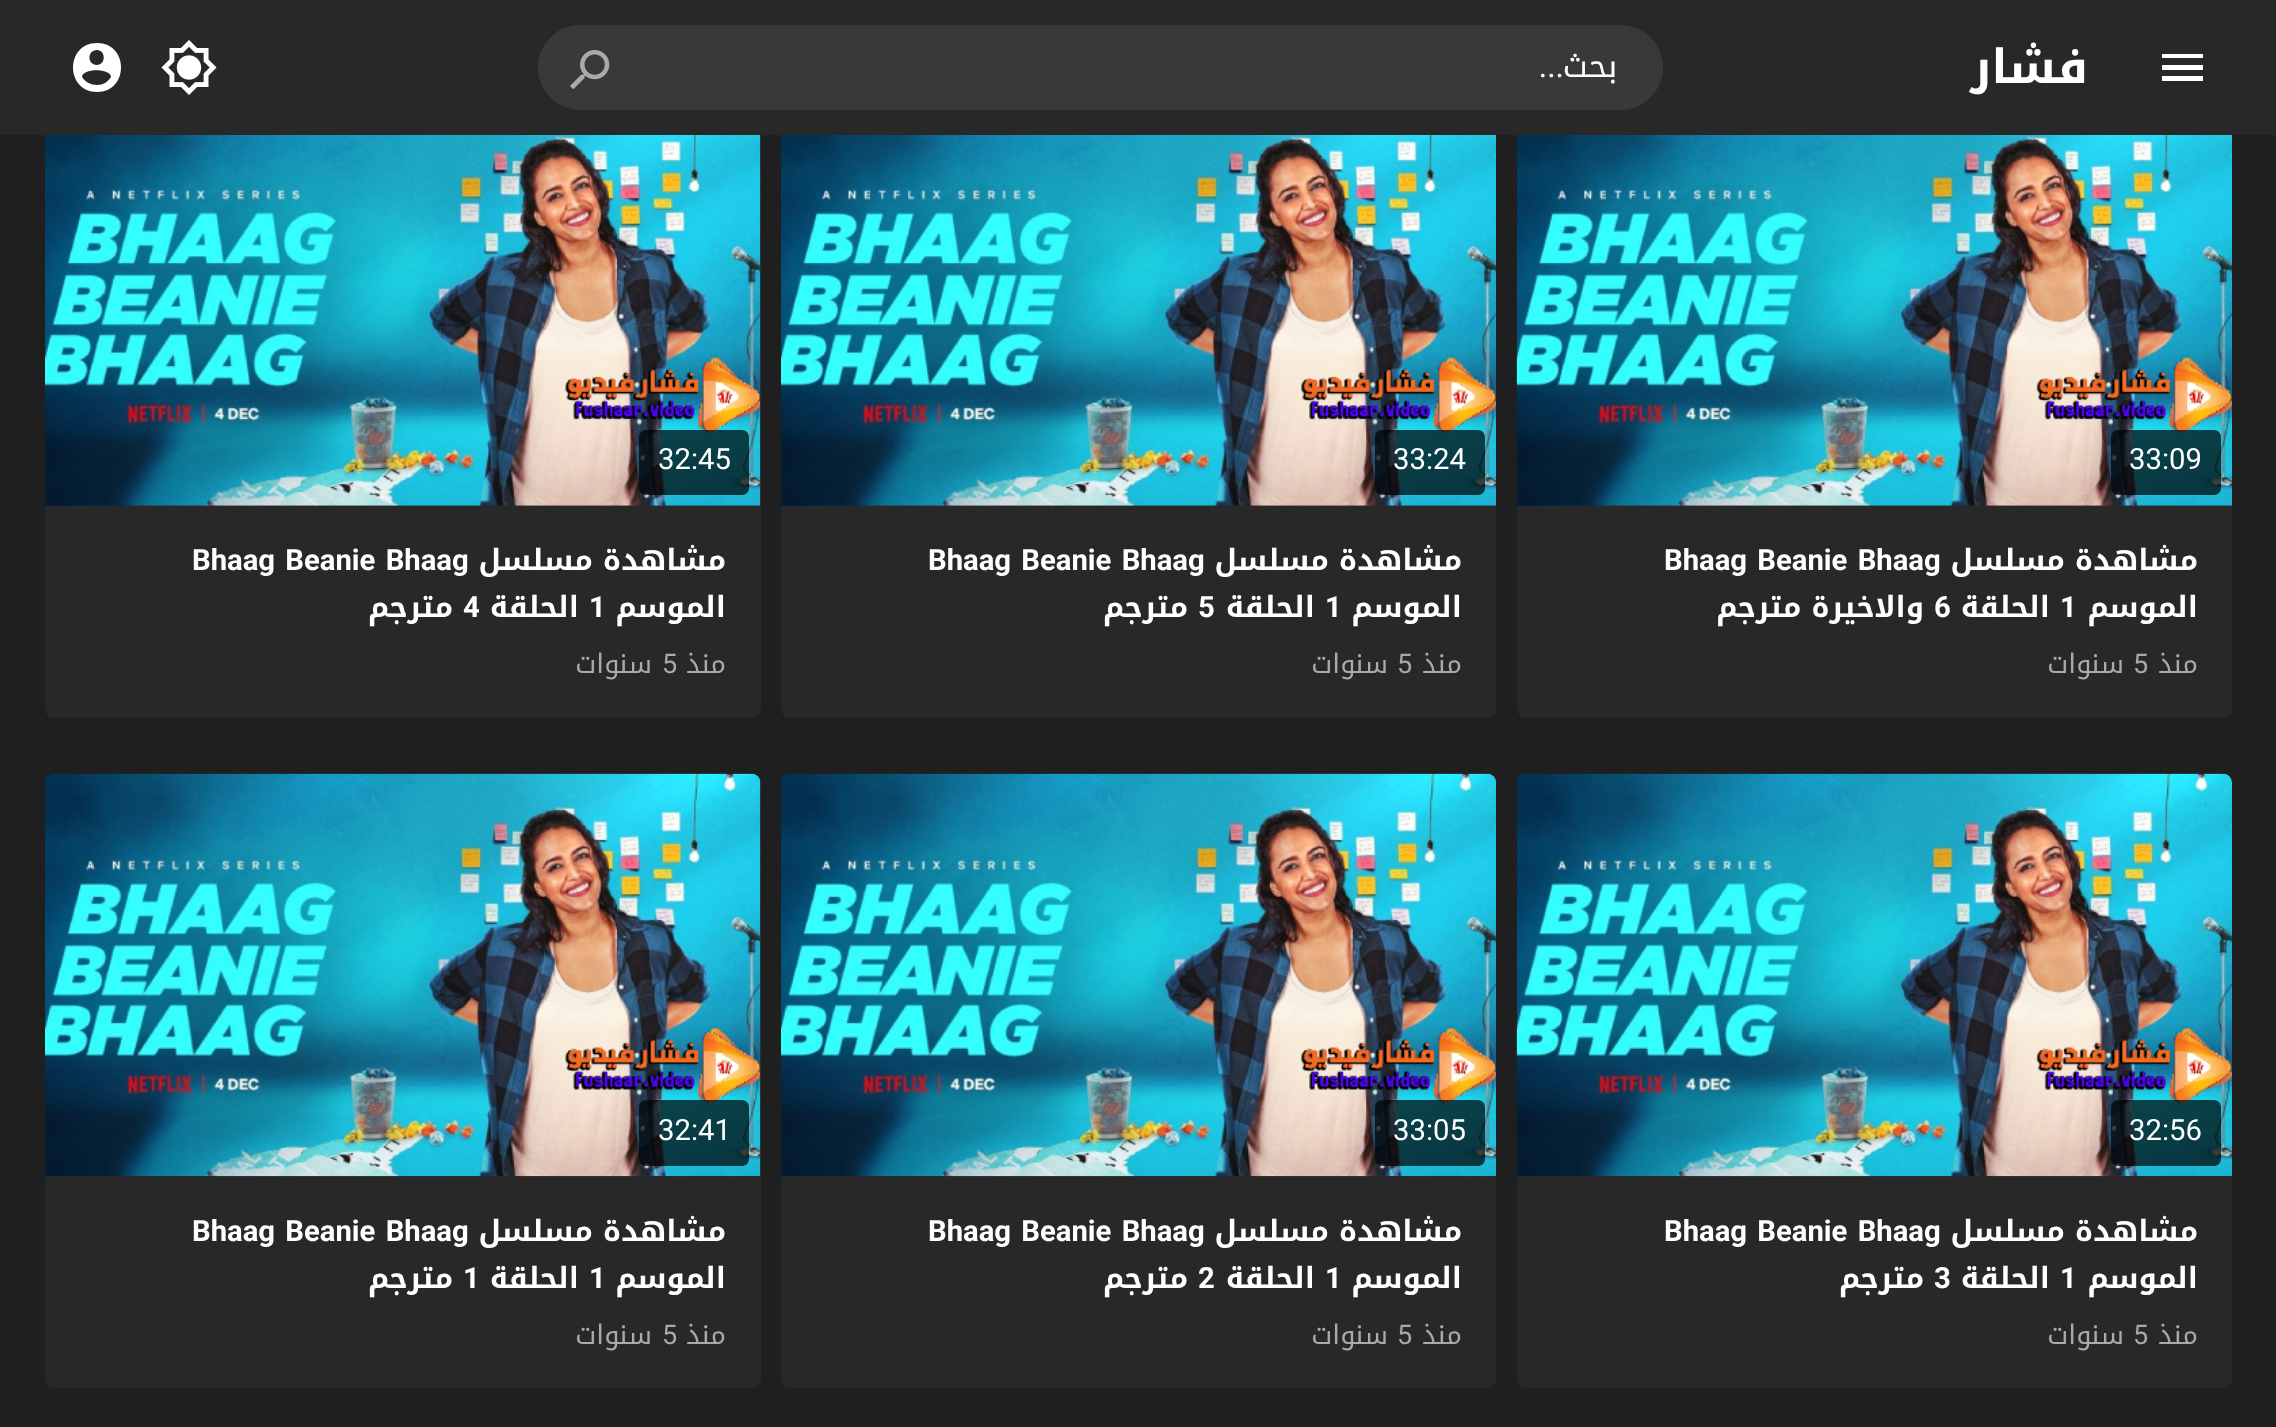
<svg xmlns="http://www.w3.org/2000/svg" width="2276" height="1427">
<style>
.a{font:bold 47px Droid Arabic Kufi;direction:rtl;fill:#fff}
.b{font:32px Droid Arabic Kufi;direction:rtl;fill:#fff}
.c{font:32px Roboto;direction:rtl;fill:#fff}
.d{font:29.25px Roboto;fill:#fff}
.e{font:bold 29.25px Droid Arabic Kufi;direction:rtl;fill:#fff}
.f{font:bold 29.25px Roboto;fill:#fff}
.g{font:27px Droid Arabic Kufi;direction:rtl;fill:#aaa}
.h{font:27px Roboto;fill:#aaa}
</style>
<rect width="100%" height="100%" fill="#1f1f1f"/>
<rect fill="#282828" x="1517" y="104" width="715" height="614" rx="9"/>
<rect fill="#282828" x="781" y="104" width="715" height="614" rx="9"/>
<rect fill="#282828" x="45" y="104" width="716" height="614" rx="9"/>
<path fill="#282828" d="M0 0h2276v135H0z"/>
<path fill="#fff" d="M2162 54h41v4h-41v-4m0 11h41v5h-41v-5m0 11h41v5h-41z"/>
<path fill="#393939" d="M650 25h970.5c23.5 0 42.5 19 42.5 42.5c0 23.5-19 42.5-42.5 42.5h-970.5z"/>
<path fill="#393939" d="M580.5 25h69.5v85h-69.5c-23.5 0-42.5-19-42.5-42.5c0-23.5 19-42.5 42.5-42.5z"/>
<image href="1.png" x="570" y="50" width="40" height="40"/>
<image href="2.png" x="161" y="40" width="56" height="55"/>
<path fill="#fff" d="M97 85c-6 0-12-3-15-8c0-9 29-9 29 0c-3 5-8 8-14 8m0-35c9 0 9 15 0 15c-10 0-10-15 0-15m0-7c-32 0-32 49 0 49c32 0 32-49 0-49z"/>
<image href="3.png" x="1516" y="135" width="716" height="371"/>
<rect fill="#000000b3" x="2111" y="430" width="110" height="65" rx="7"/>
<image href="4.png" x="781" y="135" width="715" height="371"/>
<rect fill="#000000b3" x="1375" y="430" width="110" height="65" rx="7"/>
<image href="5.png" x="45" y="135" width="716" height="371"/>
<rect fill="#000000b3" x="639" y="430" width="110" height="65" rx="7"/>
<rect fill="#282828" x="1517" y="774" width="715" height="614" rx="9"/>
<image href="6.png" x="1516" y="773" width="716" height="404"/>
<rect fill="#000000b3" x="2111" y="1100" width="110" height="66" rx="7"/>
<rect fill="#282828" x="781" y="774" width="715" height="614" rx="9"/>
<image href="7.png" x="781" y="773" width="715" height="404"/>
<rect fill="#000000b3" x="1375" y="1100" width="110" height="66" rx="7"/>
<rect fill="#282828" x="45" y="774" width="716" height="614" rx="9"/>
<image href="8.png" x="45" y="773" width="716" height="404"/>
<rect fill="#000000b3" x="639" y="1100" width="110" height="66" rx="7"/>
<text class="a" x="2088" y="83">فشار</text>
<text class="b" x="1617" y="77">بحث</text>
<text class="c" x="1564" y="77">...</text>
<text class="d" x="2129" y="469">33:09</text>
<text class="e" x="2198" y="570">مشاهدة مسلسل</text>
<text class="f" x="1664" y="570" word-spacing="3">Bhaag Beanie Bhaag</text>
<text class="e" x="2198" y="617">الموسم</text>
<text class="f" x="2060" y="617">1</text>
<text class="e" x="2050" y="617">الحلقة</text>
<text class="f" x="1934" y="617">6</text>
<text class="e" x="1924" y="617">والاخيرة مترجم</text>
<text class="g" x="2198" y="673">منذ</text>
<text class="h" x="2133" y="673">5</text>
<text class="g" x="2124" y="673">سنوات</text>
<text class="d" x="1393" y="469">33:24</text>
<text class="e" x="1462" y="570">مشاهدة مسلسل</text>
<text class="f" x="928" y="570" word-spacing="3">Bhaag Beanie Bhaag</text>
<text class="e" x="1462" y="617">الموسم</text>
<text class="f" x="1325" y="617">1</text>
<text class="e" x="1315" y="617">الحلقة</text>
<text class="f" x="1198" y="617">5</text>
<text class="e" x="1188" y="617">مترجم</text>
<text class="g" x="1462" y="673">منذ</text>
<text class="h" x="1397" y="673">5</text>
<text class="g" x="1388" y="673">سنوات</text>
<text class="d" x="658" y="469">32:45</text>
<text class="e" x="726" y="570">مشاهدة مسلسل</text>
<text class="f" x="192" y="570" word-spacing="3">Bhaag Beanie Bhaag</text>
<text class="e" x="726" y="617">الموسم</text>
<text class="f" x="589" y="617">1</text>
<text class="e" x="579" y="617">الحلقة</text>
<text class="f" x="463" y="617">4</text>
<text class="e" x="453" y="617">مترجم</text>
<text class="g" x="726" y="673">منذ</text>
<text class="h" x="662" y="673">5</text>
<text class="g" x="652" y="673">سنوات</text>
<text class="d" x="2129" y="1140">32:56</text>
<text class="e" x="2198" y="1241">مشاهدة مسلسل</text>
<text class="f" x="1664" y="1241" word-spacing="3">Bhaag Beanie Bhaag</text>
<text class="e" x="2198" y="1288">الموسم</text>
<text class="f" x="2060" y="1288">1</text>
<text class="e" x="2050" y="1288">الحلقة</text>
<text class="f" x="1934" y="1288">3</text>
<text class="e" x="1924" y="1288">مترجم</text>
<text class="g" x="2198" y="1344">منذ</text>
<text class="h" x="2133" y="1344">5</text>
<text class="g" x="2124" y="1344">سنوات</text>
<text class="d" x="1393" y="1140">33:05</text>
<text class="e" x="1462" y="1241">مشاهدة مسلسل</text>
<text class="f" x="928" y="1241" word-spacing="3">Bhaag Beanie Bhaag</text>
<text class="e" x="1462" y="1288">الموسم</text>
<text class="f" x="1325" y="1288">1</text>
<text class="e" x="1315" y="1288">الحلقة</text>
<text class="f" x="1198" y="1288">2</text>
<text class="e" x="1188" y="1288">مترجم</text>
<text class="g" x="1462" y="1344">منذ</text>
<text class="h" x="1397" y="1344">5</text>
<text class="g" x="1388" y="1344">سنوات</text>
<text class="d" x="658" y="1140">32:41</text>
<text class="e" x="726" y="1241">مشاهدة مسلسل</text>
<text class="f" x="192" y="1241" word-spacing="3">Bhaag Beanie Bhaag</text>
<text class="e" x="726" y="1288">الموسم</text>
<text class="f" x="589" y="1288">1</text>
<text class="e" x="579" y="1288">الحلقة</text>
<text class="f" x="463" y="1288">1</text>
<text class="e" x="453" y="1288">مترجم</text>
<text class="g" x="726" y="1344">منذ</text>
<text class="h" x="662" y="1344">5</text>
<text class="g" x="652" y="1344">سنوات</text>
</svg>
